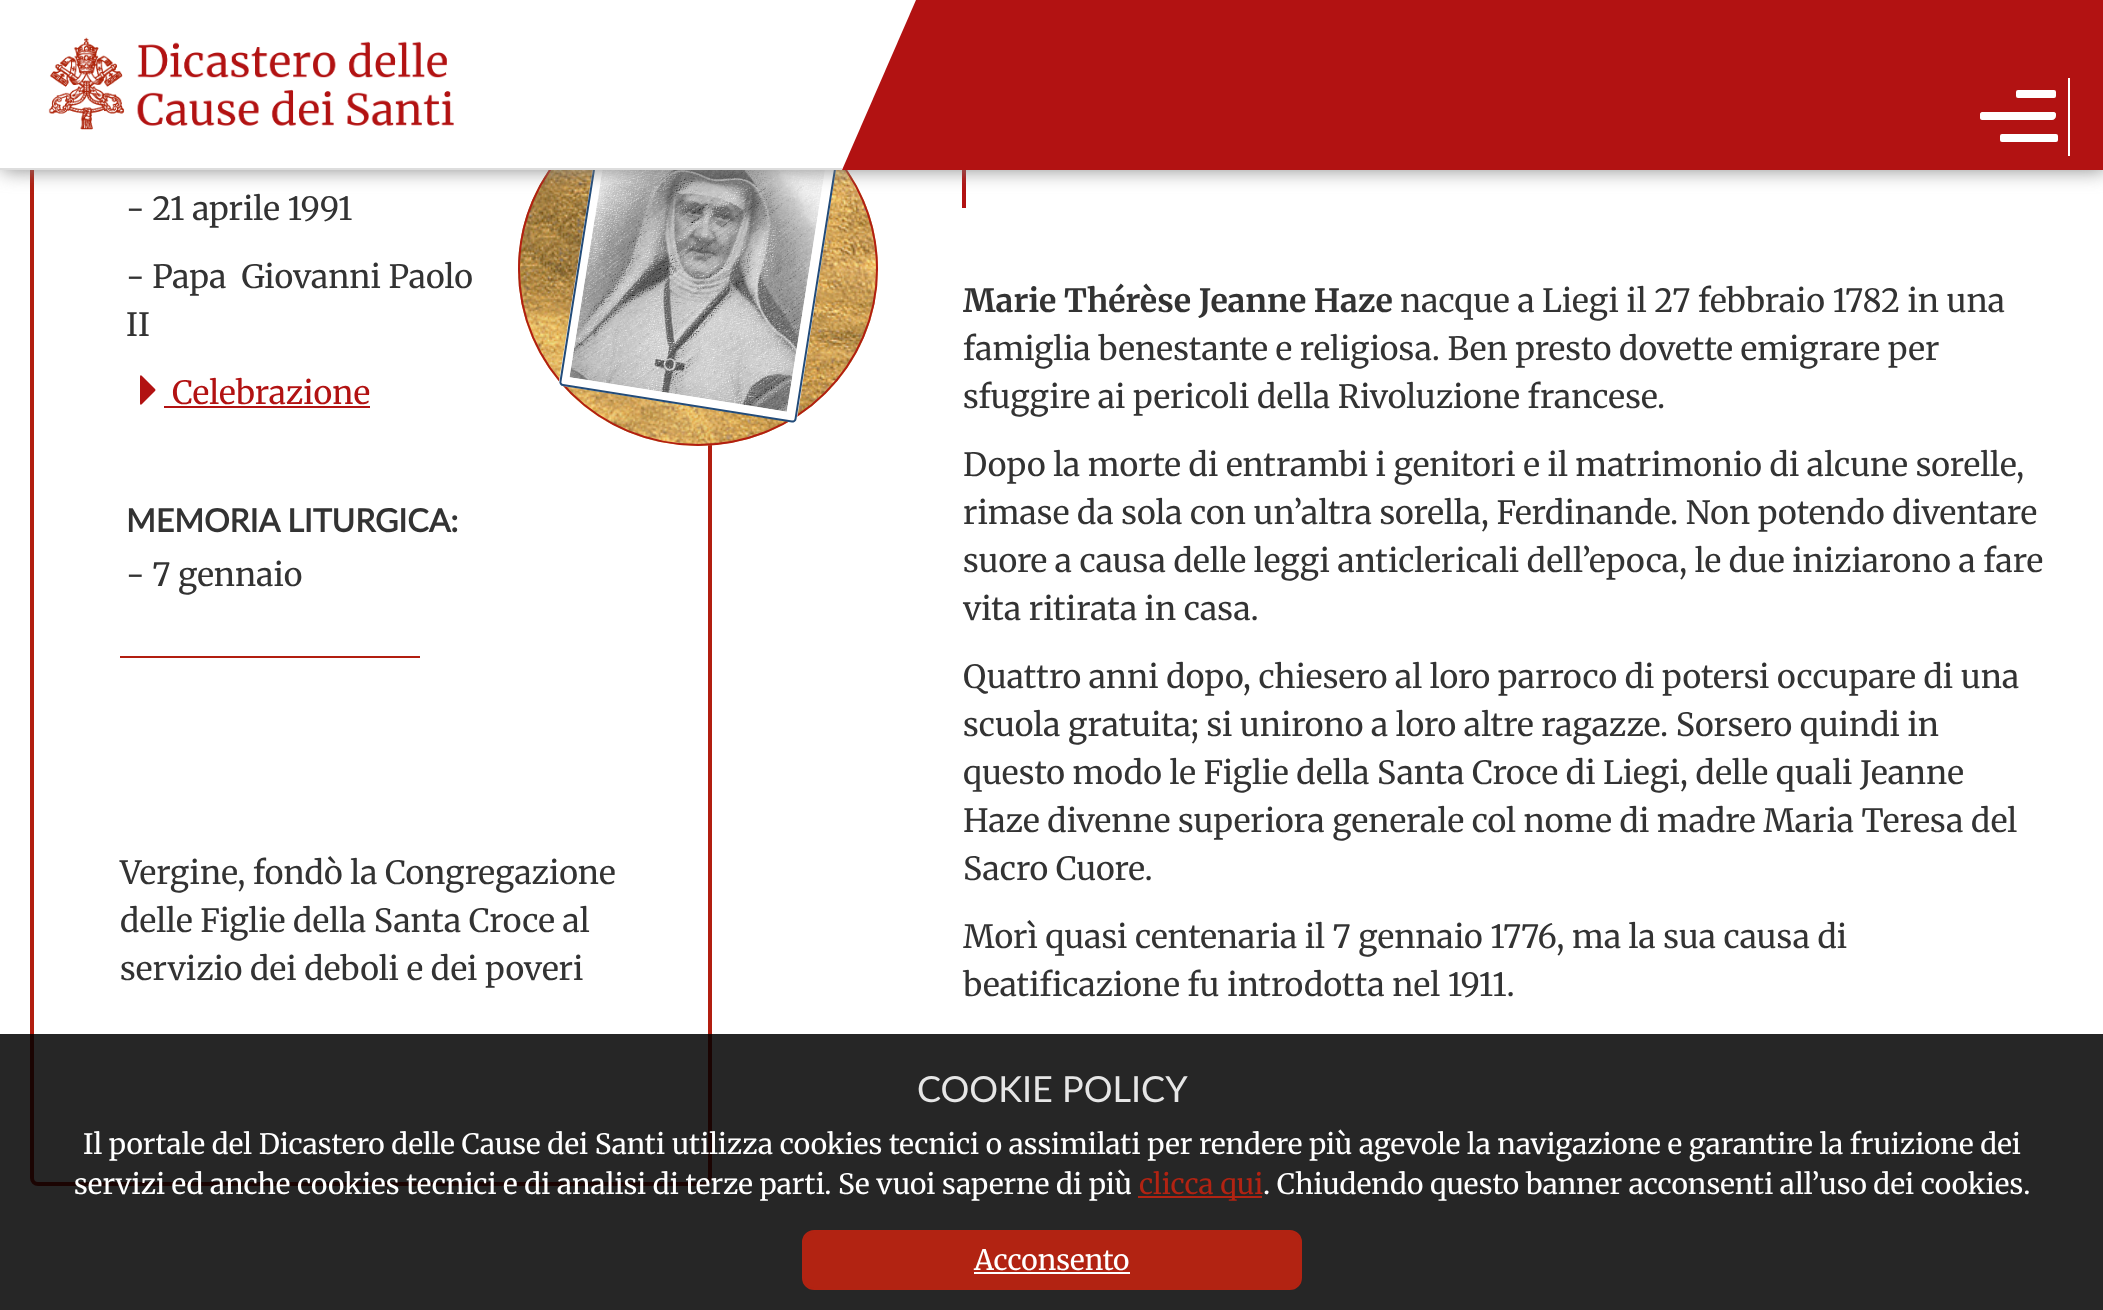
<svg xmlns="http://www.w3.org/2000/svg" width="2103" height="1310">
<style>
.a{font:32px Merriweather;fill:#333}
.b{font:32px Merriweather;fill:#b21212}
.c{font:bold 32px Lato;fill:#333}
.d{font:bold 32px Merriweather;fill:#333}
.e{font:36px Lato;fill:#e6e6e6}
.f{font:28px Merriweather;fill:#fff}
.g{font:28px Merriweather;fill:#b22312}
</style>
<rect width="100%" height="100%" fill="#fff"/>
<rect fill="none" stroke="#b21e10" stroke-width="4" x="32" y="-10" width="678" height="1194" rx="6"/>
<image href="3.png" x="518" y="170" width="360" height="276"/>
<path fill="none" stroke="#b21e10" stroke-width="2" d="M698 93c99 0 179 79 179 176c0 97-80 176-179 176c-99 0-179-79-179-176c0-97 80-176 179-176z"/>
<path fill="#fff" d="M606 116l229 36c2 0 3 2 3 4l-41 263c-1 2-3 4-5 3l-229-36c-2 0-4-2-4-5l42-262c0-2 2-4 5-3z"/>
<path fill="none" stroke="#224b79" stroke-width="2" d="M605.5 116.5l229 36.5c2 0 3 1.5 2.5 3.5l-41.5 262.5c0 1.5-2 2.5-3.5 2.5l-229-36.5c-1.5 0-3-2-2.5-3.5l41.5-262.5c.5-1.5 2-2.5 3.5-2.5z"/>
<image href="4.png" x="569" y="170" width="256" height="242"/>
<path fill="#b21212" d="M962 170h4v38H962z"/>
<path fill="#7e7e7eeb" filter="blur(10px)" d="M2 0h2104v170H2z"/>
<path fill="#fff" d="M0 0h842v168H0z"/>
<path fill="#ddd" d="M0 168h842v2H0z"/>
<image href="1.png" x="48" y="37" width="406" height="93"/>
<path fill="#b21212" d="M842 0h1261v170H842z"/>
<path fill="#fff" d="M842 0h74l-74 170z"/>
<path fill="#fff" d="M2068 78h2v78H2068z"/>
<rect fill="#fff" x="2016" y="90" width="40" height="8" rx="2"/>
<path fill="#fff" d="M1982 112h38v8h-38c-1 0-2-1-2-2v-4c0-1 1-2 2-2z"/>
<path fill="#fff" d="M2016 112h38c1 0 2 1 2 2v2c0 2-2 4-4 4h-36z"/>
<rect fill="#fff" x="2000" y="134" width="58" height="8" rx="2"/>
<image href="2.png" x="140" y="375" width="16" height="30"/>
<path fill="#b21212" d="M164 406h206v2H164z"/>
<path fill="#b21e10" d="M120 656h300v2H120z"/>
<path fill="#000000d9" d="M0 1034h2103v276H0z"/>
<path fill="#b22312" d="M1138 1196h124v2H1138z"/>
<rect fill="#b22312" stroke="#b22312" stroke-width="2" x="803" y="1231" width="498" height="58" rx="11"/>
<path fill="#fff" d="M974 1272h156v2H974z"/>
<text class="a" x="126" y="220">- 21 aprile 1991</text>
<text class="a" xml:space="preserve" x="126" y="288">- Papa  Giovanni Paolo</text>
<text class="a" x="126" y="336">II</text>
<text class="b" x="172" y="404">Celebrazione</text>
<text class="c" x="126" y="532">MEMORIA LITURGICA:</text>
<text class="a" x="126" y="586">- 7 gennaio</text>
<text class="a" x="120" y="884">Vergine, fondò la Congregazione</text>
<text class="a" x="120" y="932">delle Figlie della Santa Croce al</text>
<text class="a" x="120" y="980">servizio dei deboli e dei poveri</text>
<text class="d" x="963" y="312">Marie Thérèse Jeanne Haze</text>
<text class="a" x="1400" y="312">nacque a Liegi il 27 febbraio 1782 in una</text>
<text class="a" x="963" y="360">famiglia benestante e religiosa. Ben presto dovette emigrare per</text>
<text class="a" x="963" y="408">sfuggire ai pericoli della Rivoluzione francese.</text>
<text class="a" x="963" y="476">Dopo la morte di entrambi i genitori e il matrimonio di alcune sorelle,</text>
<text class="a" x="963" y="524">rimase da sola con un’altra sorella, Ferdinande. Non potendo diventare</text>
<text class="a" x="963" y="572">suore a causa delle leggi anticlericali dell’epoca, le due iniziarono a fare</text>
<text class="a" x="963" y="620">vita ritirata in casa.</text>
<text class="a" x="963" y="688">Quattro anni dopo, chiesero al loro parroco di potersi occupare di una</text>
<text class="a" x="963" y="736">scuola gratuita; si unirono a loro altre ragazze. Sorsero quindi in</text>
<text class="a" x="963" y="784">questo modo le Figlie della Santa Croce di Liegi, delle quali Jeanne</text>
<text class="a" x="963" y="832">Haze divenne superiora generale col nome di madre Maria Teresa del</text>
<text class="a" x="963" y="880">Sacro Cuore.</text>
<text class="a" x="963" y="948">Morì quasi centenaria il 7 gennaio 1776, ma la sua causa di</text>
<text class="a" x="963" y="996">beatificazione fu introdotta nel 1911.</text>
<text class="e" x="917" y="1102">COOKIE POLICY</text>
<text class="f" x="83" y="1154">Il portale del Dicastero delle Cause dei Santi utilizza cookies tecnici o assimilati per rendere più agevole la navigazione e garantire la fruizione dei</text>
<text class="f" x="74" y="1194">servizi ed anche cookies tecnici e di analisi di terze parti. Se vuoi saperne di più</text>
<text class="g" x="1139" y="1194">clicca qui</text>
<text class="f" x="1263" y="1194">. Chiudendo questo banner acconsenti all’uso dei cookies.</text>
<text class="f" x="974" y="1270">Acconsento</text>
</svg>
